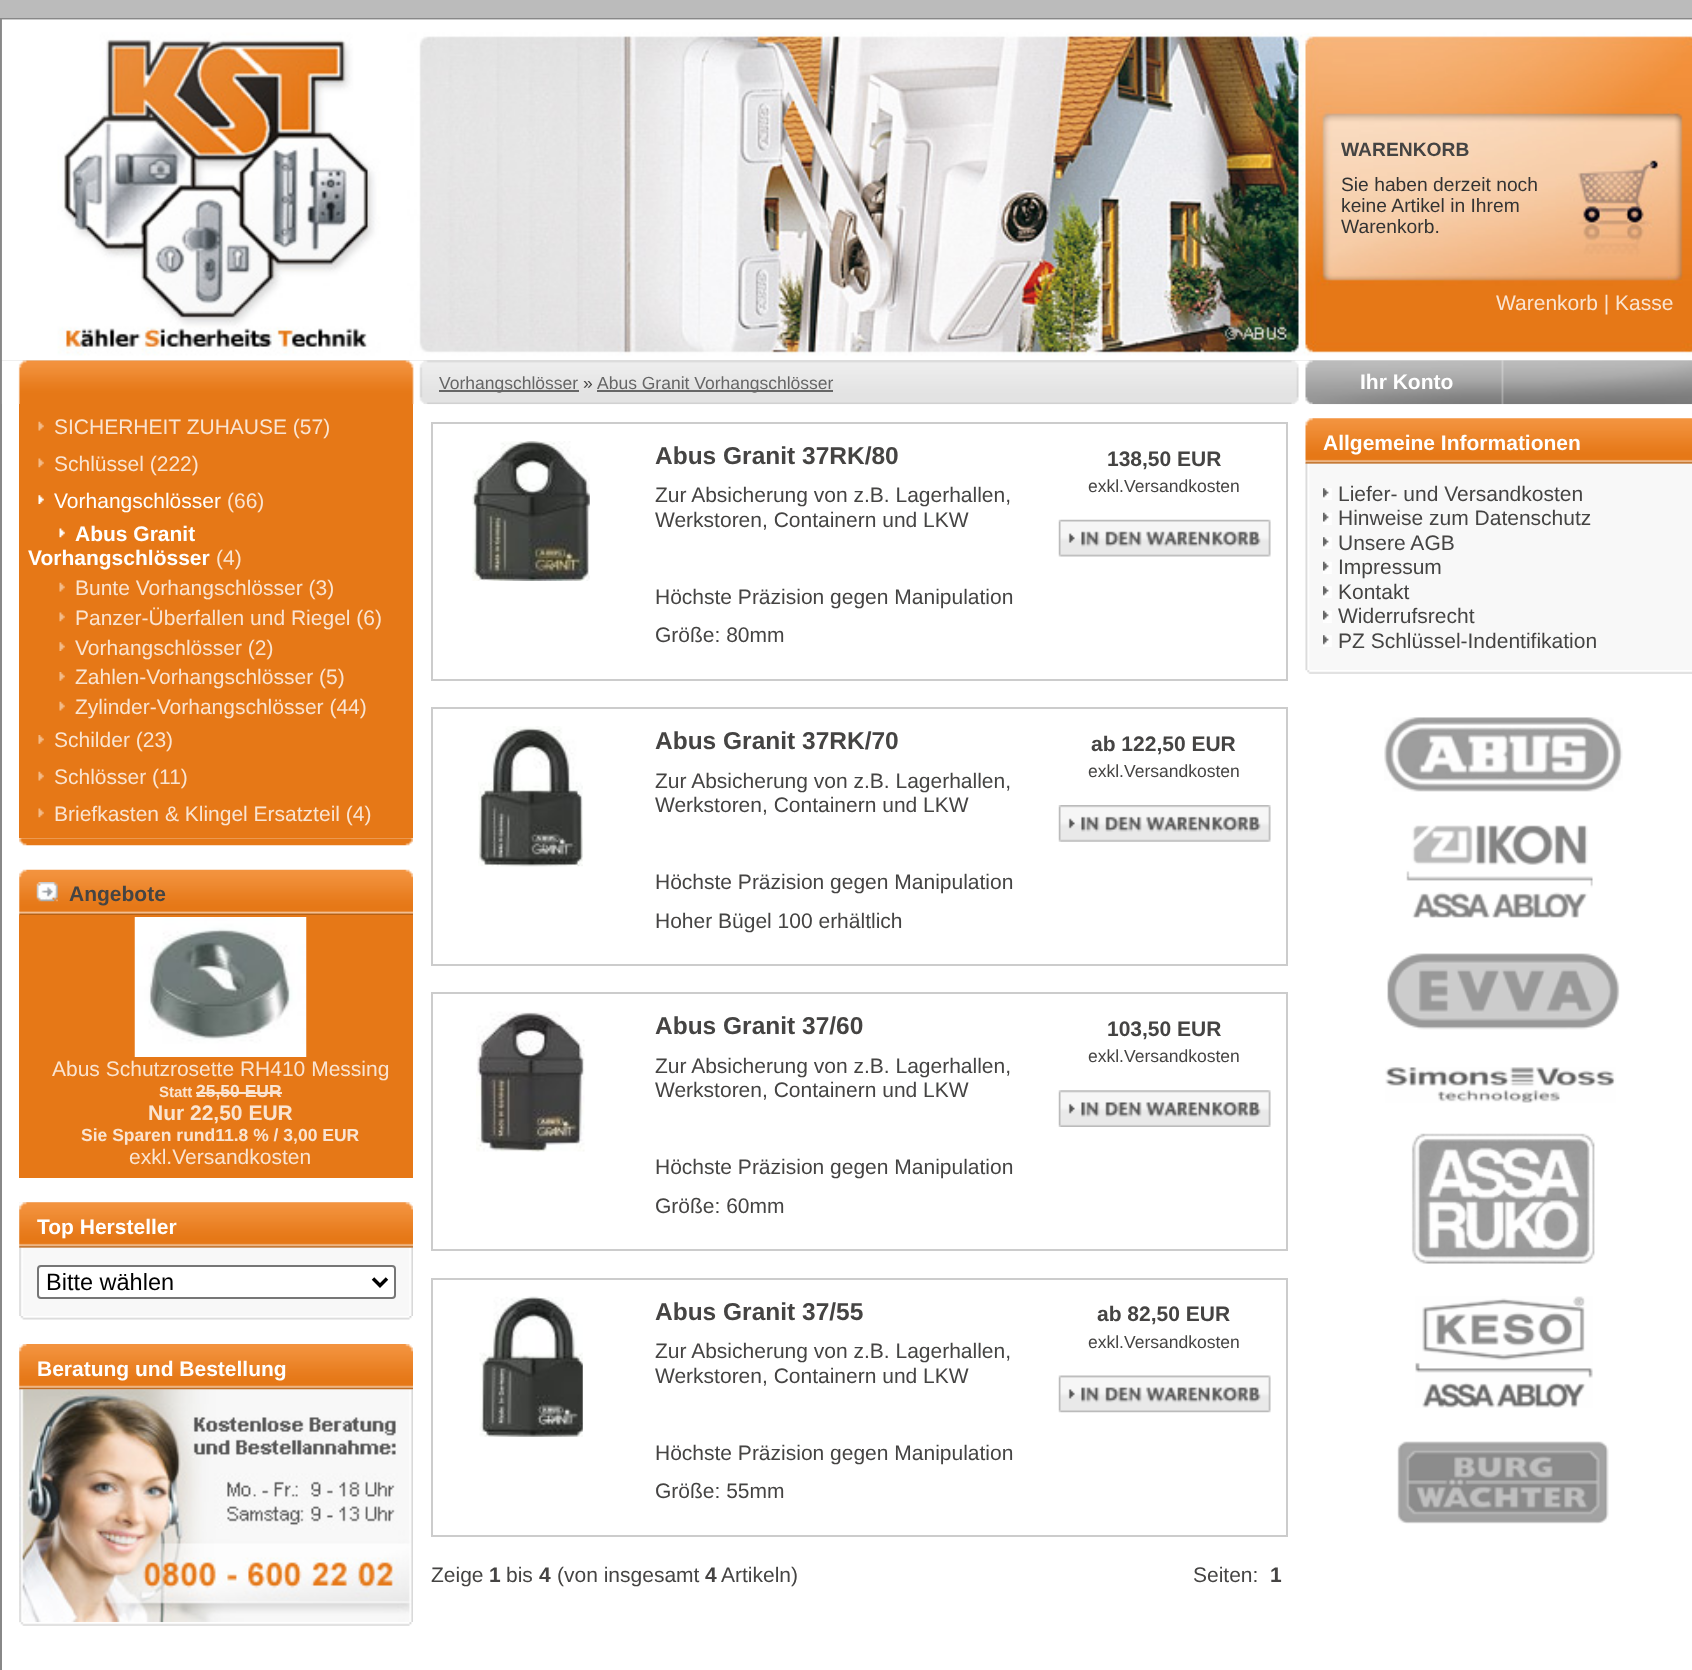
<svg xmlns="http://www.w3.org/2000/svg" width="1692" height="1670">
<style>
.a{font:bold 19.25px Liberation Sans;fill:#454443}
.b{font:19.25px Liberation Sans;fill:#333}
.c{font:21px Liberation Sans;fill:#fae4d1}
.d{font:17.5px Liberation Sans;fill:#666}
.e{font:17.5px Liberation Sans;fill:#454443}
.f{font:bold 21px Liberation Sans;fill:#fff}
.g{font:21px Liberation Sans;fill:#fff}
.h{font:bold 21px Liberation Sans;fill:#454443}
.i{font:bold 15px Liberation Sans;fill:#fae4d1}
.j{font:bold 17.5px Liberation Sans;fill:#fae4d1}
.k{font:bold 21px Liberation Sans;fill:#fae4d1}
.l{font:23.5px Liberation Sans;fill:#000}
.m{font:bold 24.5px Liberation Sans;fill:#454443}
.n{font:21px Liberation Sans;fill:#454443}
</style>
<rect width="100%" height="100%" fill="#fff"/>
<image href="1.png" x="0" y="0" width="1692" height="361"/>
<path fill="none" stroke="#888" stroke-width="2" d="M1 19h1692v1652H1z"/>
<image href="2.png" x="1" y="19" width="1691" height="342"/>
<image href="3.png" x="1" y="360" width="1691" height="45"/>
<path fill="#666" d="M439 390h140v2H439z"/>
<path fill="#666" d="M597 390h236v2H597z"/>
<path fill="#e67817" d="M19 404h394v434H19z"/>
<image href="4.png" x="38" y="421" width="6" height="10"/>
<image href="5.png" x="38" y="458" width="6" height="10"/>
<image href="6.png" x="38" y="495" width="6" height="9"/>
<image href="7.png" x="59" y="528" width="6" height="10"/>
<image href="4.png" x="59" y="582" width="6" height="10"/>
<image href="5.png" x="59" y="612" width="6" height="10"/>
<image href="8.png" x="59" y="642" width="6" height="9"/>
<image href="9.png" x="59" y="672" width="6" height="9"/>
<image href="4.png" x="59" y="701" width="6" height="10"/>
<image href="9.png" x="38" y="735" width="6" height="9"/>
<image href="4.png" x="38" y="771" width="6" height="10"/>
<image href="5.png" x="38" y="808" width="6" height="10"/>
<image href="10.png" x="19" y="838" width="394" height="8"/>
<image href="11.png" x="19" y="869" width="394" height="46"/>
<image href="12.png" x="36" y="882" width="22" height="20"/>
<path fill="#e67817" d="M19 915h394v263H19z"/>
<image href="13.png" x="134" y="917" width="173" height="140"/>
<path fill="#fae4d1" d="M196 1092h86v2H196z"/>
<path fill="#efefef" d="M19 1202h394v46H19z"/>
<image href="14.png" x="19" y="1202" width="394" height="46"/>
<image href="15.png" x="19" y="1247" width="394" height="69"/>
<rect fill="#fff" stroke="#767676" stroke-width="2" x="38" y="1266" width="357" height="32" rx="3"/>
<path fill="none" stroke="#000" stroke-width="3.5" d="M373 1278.5l7 7l7-7"/>
<image href="16.png" x="20" y="1316" width="392" height="4"/>
<path fill="#efefef" d="M19 1344h394v46H19z"/>
<image href="17.png" x="19" y="1344" width="394" height="46"/>
<image href="18.png" x="19" y="1389" width="394" height="234"/>
<image href="19.png" x="20" y="1622" width="393" height="4"/>
<path fill="none" stroke="#ccc" stroke-width="2" d="M432 423h855v257H432z"/>
<image href="20.png" x="472" y="441" width="118" height="140"/>
<image href="21.png" x="1058" y="519" width="213" height="38"/>
<path fill="none" stroke="#ccc" stroke-width="2" d="M432 708h855v257H432z"/>
<image href="22.png" x="478" y="726" width="105" height="141"/>
<image href="23.png" x="1058" y="805" width="213" height="37"/>
<path fill="none" stroke="#ccc" stroke-width="2" d="M432 993h855v257H432z"/>
<image href="24.png" x="476" y="1011" width="109" height="141"/>
<image href="25.png" x="1058" y="1090" width="213" height="37"/>
<path fill="none" stroke="#ccc" stroke-width="2" d="M432 1279h855v257H432z"/>
<image href="26.png" x="479" y="1296" width="104" height="141"/>
<image href="27.png" x="1058" y="1375" width="213" height="38"/>
<image href="28.png" x="1305" y="418" width="387" height="46"/>
<image href="29.png" x="1305" y="463" width="387" height="208"/>
<image href="30.png" x="1323" y="488" width="9" height="12"/>
<image href="31.png" x="1323" y="512" width="9" height="13"/>
<image href="30.png" x="1323" y="537" width="9" height="12"/>
<image href="31.png" x="1323" y="561" width="9" height="13"/>
<image href="30.png" x="1323" y="586" width="9" height="12"/>
<image href="31.png" x="1323" y="610" width="9" height="13"/>
<image href="30.png" x="1323" y="635" width="9" height="12"/>
<image href="32.png" x="1307" y="670" width="385" height="4"/>
<image href="33.png" x="1384" y="717" width="239" height="75"/>
<image href="34.png" x="1406" y="825" width="187" height="93"/>
<image href="35.png" x="1387" y="953" width="233" height="77"/>
<image href="36.png" x="1385" y="1067" width="231" height="36"/>
<image href="37.png" x="1411" y="1133" width="184" height="131"/>
<image href="38.png" x="1415" y="1296" width="178" height="112"/>
<image href="39.png" x="1397" y="1441" width="212" height="83"/>
<text class="a" x="1341" y="156">WARENKORB</text>
<text class="b" x="1341" y="191">Sie haben derzeit noch</text>
<text class="b" x="1341" y="212">keine Artikel in Ihrem</text>
<text class="b" x="1341" y="233">Warenkorb.</text>
<text class="c" x="1496" y="310">Warenkorb | Kasse</text>
<text class="d" x="439" y="389">Vorhangschlösser</text>
<text class="e" x="583" y="389">»</text>
<text class="d" x="597" y="389">Abus Granit Vorhangschlösser</text>
<text class="f" x="1360" y="389">Ihr Konto</text>
<text class="c" x="54" y="434">SICHERHEIT ZUHAUSE (57)</text>
<text class="c" x="54" y="471">Schlüssel (222)</text>
<text class="g" x="54" y="508">Vorhangschlösser</text>
<text class="c" x="227" y="508">(66)</text>
<text class="f" x="75" y="541">Abus Granit</text>
<text class="f" x="28" y="565">Vorhangschlösser</text>
<text class="c" x="216" y="565">(4)</text>
<text class="c" x="75" y="595">Bunte Vorhangschlösser (3)</text>
<text class="c" x="75" y="625">Panzer-Überfallen und Riegel (6)</text>
<text class="c" x="75" y="655">Vorhangschlösser (2)</text>
<text class="c" x="75" y="684">Zahlen-Vorhangschlösser (5)</text>
<text class="c" x="75" y="714">Zylinder-Vorhangschlösser (44)</text>
<text class="c" x="54" y="747">Schilder (23)</text>
<text class="c" x="54" y="784">Schlösser (11)</text>
<text class="c" x="54" y="821">Briefkasten &amp; Klingel Ersatzteil (4)</text>
<text class="h" x="69" y="901">Angebote</text>
<text class="c" x="52" y="1076">Abus Schutzrosette RH410 Messing</text>
<text class="i" x="159" y="1097">Statt</text>
<text class="j" x="196" y="1097">25,50 EUR</text>
<text class="k" x="148" y="1120">Nur 22,50 EUR</text>
<text class="j" x="81" y="1141">Sie Sparen rund11.8 % / 3,00 EUR</text>
<text class="c" x="129" y="1164">exkl.Versandkosten</text>
<text class="f" x="37" y="1234">Top Hersteller</text>
<text class="l" x="46" y="1290">Bitte wählen</text>
<text class="f" x="37" y="1376">Beratung und Bestellung</text>
<text class="m" x="655" y="464">Abus Granit 37RK/80</text>
<text class="n" x="655" y="502">Zur Absicherung von z.B. Lagerhallen,</text>
<text class="n" x="655" y="527">Werkstoren, Containern und LKW</text>
<text class="n" x="655" y="604">Höchste Präzision gegen Manipulation</text>
<text class="n" x="655" y="642">Größe: 80mm</text>
<text class="h" x="1107" y="466">138,50 EUR</text>
<text class="e" x="1088" y="492">exkl.Versandkosten</text>
<text class="m" x="655" y="749">Abus Granit 37RK/70</text>
<text class="n" x="655" y="788">Zur Absicherung von z.B. Lagerhallen,</text>
<text class="n" x="655" y="812">Werkstoren, Containern und LKW</text>
<text class="n" x="655" y="889">Höchste Präzision gegen Manipulation</text>
<text class="n" x="655" y="928">Hoher Bügel 100 erhältlich</text>
<text class="h" x="1091" y="751">ab 122,50 EUR</text>
<text class="e" x="1088" y="777">exkl.Versandkosten</text>
<text class="m" x="655" y="1034">Abus Granit 37/60</text>
<text class="n" x="655" y="1073">Zur Absicherung von z.B. Lagerhallen,</text>
<text class="n" x="655" y="1097">Werkstoren, Containern und LKW</text>
<text class="n" x="655" y="1174">Höchste Präzision gegen Manipulation</text>
<text class="n" x="655" y="1213">Größe: 60mm</text>
<text class="h" x="1107" y="1036">103,50 EUR</text>
<text class="e" x="1088" y="1062">exkl.Versandkosten</text>
<text class="m" x="655" y="1320">Abus Granit 37/55</text>
<text class="n" x="655" y="1358">Zur Absicherung von z.B. Lagerhallen,</text>
<text class="n" x="655" y="1383">Werkstoren, Containern und LKW</text>
<text class="n" x="655" y="1460">Höchste Präzision gegen Manipulation</text>
<text class="n" x="655" y="1498">Größe: 55mm</text>
<text class="h" x="1097" y="1321">ab 82,50 EUR</text>
<text class="e" x="1088" y="1348">exkl.Versandkosten</text>
<text class="n" x="431" y="1582">Zeige</text>
<text class="h" x="489" y="1582">1</text>
<text class="n" x="506" y="1582">bis</text>
<text class="h" x="539" y="1582">4</text>
<text class="n" x="557" y="1582">(von insgesamt</text>
<text class="h" x="705" y="1582">4</text>
<text class="n" x="721" y="1582">Artikeln)</text>
<text class="n" x="1193" y="1582">Seiten:</text>
<text class="h" x="1270" y="1582">1</text>
<text class="f" x="1323" y="450">Allgemeine Informationen</text>
<text class="n" x="1338" y="501">Liefer- und Versandkosten</text>
<text class="n" x="1338" y="525">Hinweise zum Datenschutz</text>
<text class="n" x="1338" y="550">Unsere AGB</text>
<text class="n" x="1338" y="574">Impressum</text>
<text class="n" x="1338" y="599">Kontakt</text>
<text class="n" x="1338" y="623">Widerrufsrecht</text>
<text class="n" x="1338" y="648">PZ Schlüssel-Indentifikation</text>
</svg>
